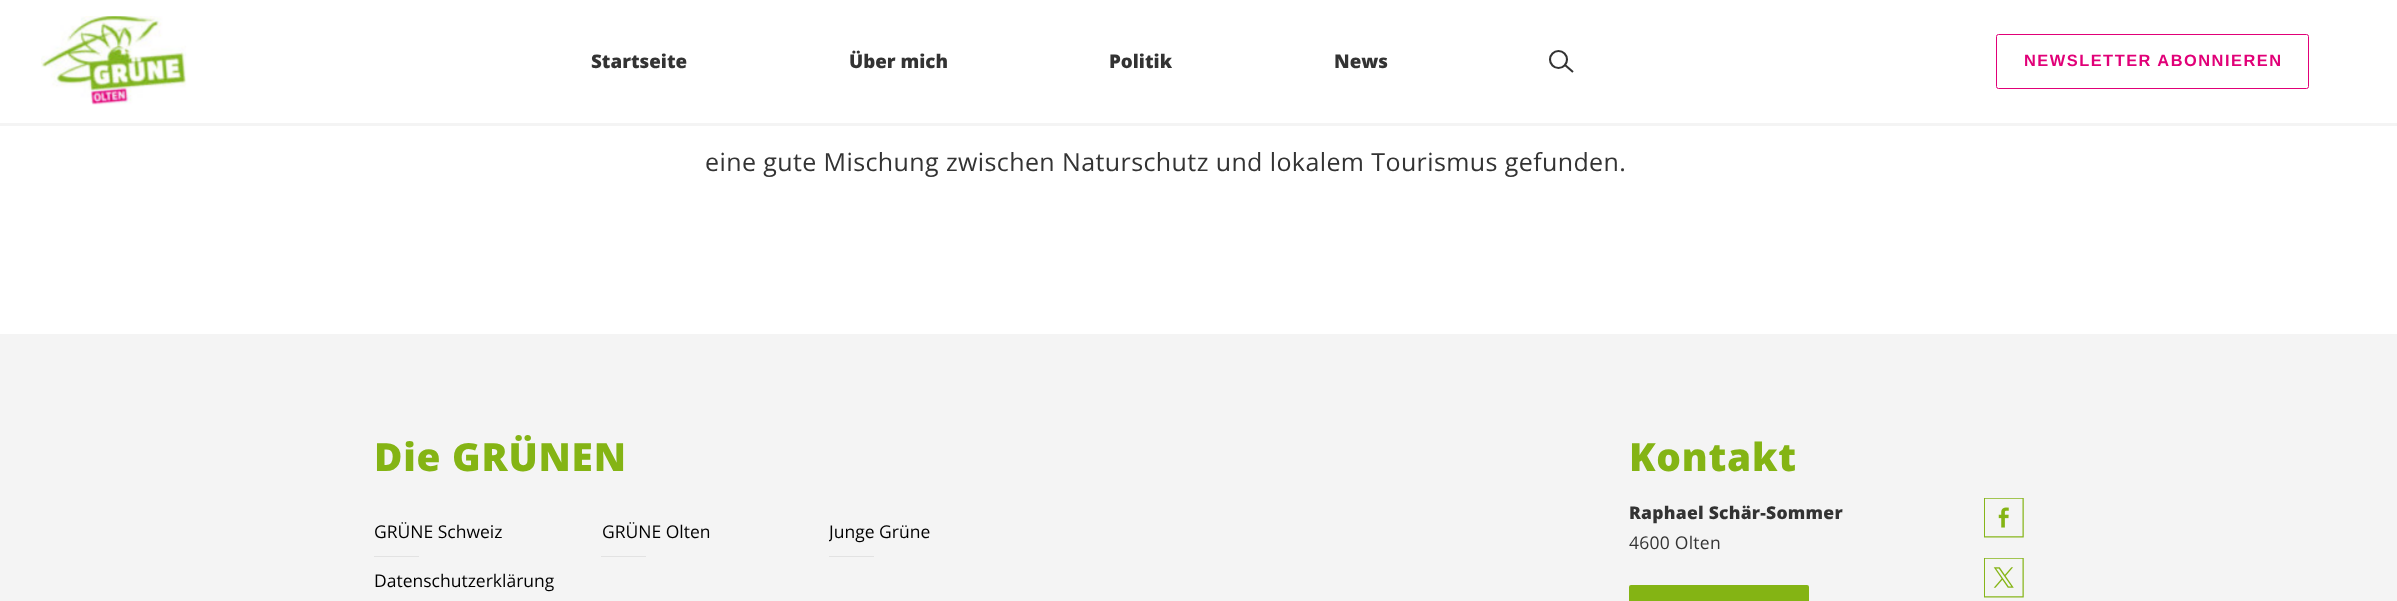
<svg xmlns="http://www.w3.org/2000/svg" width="2397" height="601">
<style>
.a{font:800 18.75px Open Sans;fill:#333}
.b{font:bold 16.4px Liberation Sans;letter-spacing:1.5px;fill:#e10078}
.c{font:25px Open Sans;letter-spacing:0.4px;fill:#333}
.d{font:800 38.75px Open Sans;letter-spacing:0.75px;fill:#84b414}
.e{font:17.5px Open Sans;fill:#000}
.f{font:800 17.5px Open Sans;letter-spacing:0.25px;fill:#333}
.g{font:17.5px Open Sans;letter-spacing:0.25px;fill:#333}
</style>
<defs>
<clipPath id="clip1"><path d="M829 508h199v50H829z"/></clipPath>
</defs>
<rect width="100%" height="100%" fill="#fff"/>
<path fill="#f4f4f4" d="M0 123h2397v3H0z"/>
<image href="1.png" x="41" y="16" width="146" height="89"/>
<circle fill="none" stroke="#333" stroke-width="2.1" cx="1558.5" cy="59.5" r="8.5"/>
<path fill="none" stroke="#333" stroke-width="2.1" d="M1565 65l8 7"/>
<rect fill="none" stroke="#e10078" x="1996.5" y="34.5" width="312" height="54" rx="2"/>
<path fill="#f4f4f4" d="M0 334h2397v267H0z"/>
<path fill="#e2e2e2" d="M374 556h45v1H374z"/>
<path fill="#e2e2e2" d="M601 556h45v1H601z"/>
<path fill="#e2e2e2" d="M829 556h45v1H829z"/>
<rect fill="#84b414" x="1629" y="585" width="180" height="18" rx="2"/>
<image href="2.png" x="1984" y="498" width="40" height="40"/>
<image href="3.png" x="1984" y="558" width="40" height="40"/>
<text class="a" x="591" y="68">Startseite</text>
<text class="a" x="849" y="68">Über mich</text>
<text class="a" x="1109" y="68">Politik</text>
<text class="a" x="1334" y="68">News</text>
<text class="b" x="2024" y="66">NEWSLETTER ABONNIEREN</text>
<text class="c" x="705" y="171">eine gute Mischung zwischen Naturschutz und lokalem Tourismus gefunden.</text>
<text class="d" x="374" y="471">Die GRÜNEN</text>
<text class="e" x="374" y="538">GRÜNE Schweiz</text>
<text class="e" x="602" y="538">GRÜNE Olten</text>
<g clip-path="url(#clip1)">
<text class="e" x="829" y="538">Junge Grüne</text>
</g>
<text class="e" x="374" y="587">Datenschutzerklärung</text>
<text class="d" x="1629" y="471">Kontakt</text>
<text class="f" x="1629" y="519">Raphael Schär-Sommer</text>
<text class="g" x="1629" y="549">4600 Olten</text>
</svg>
